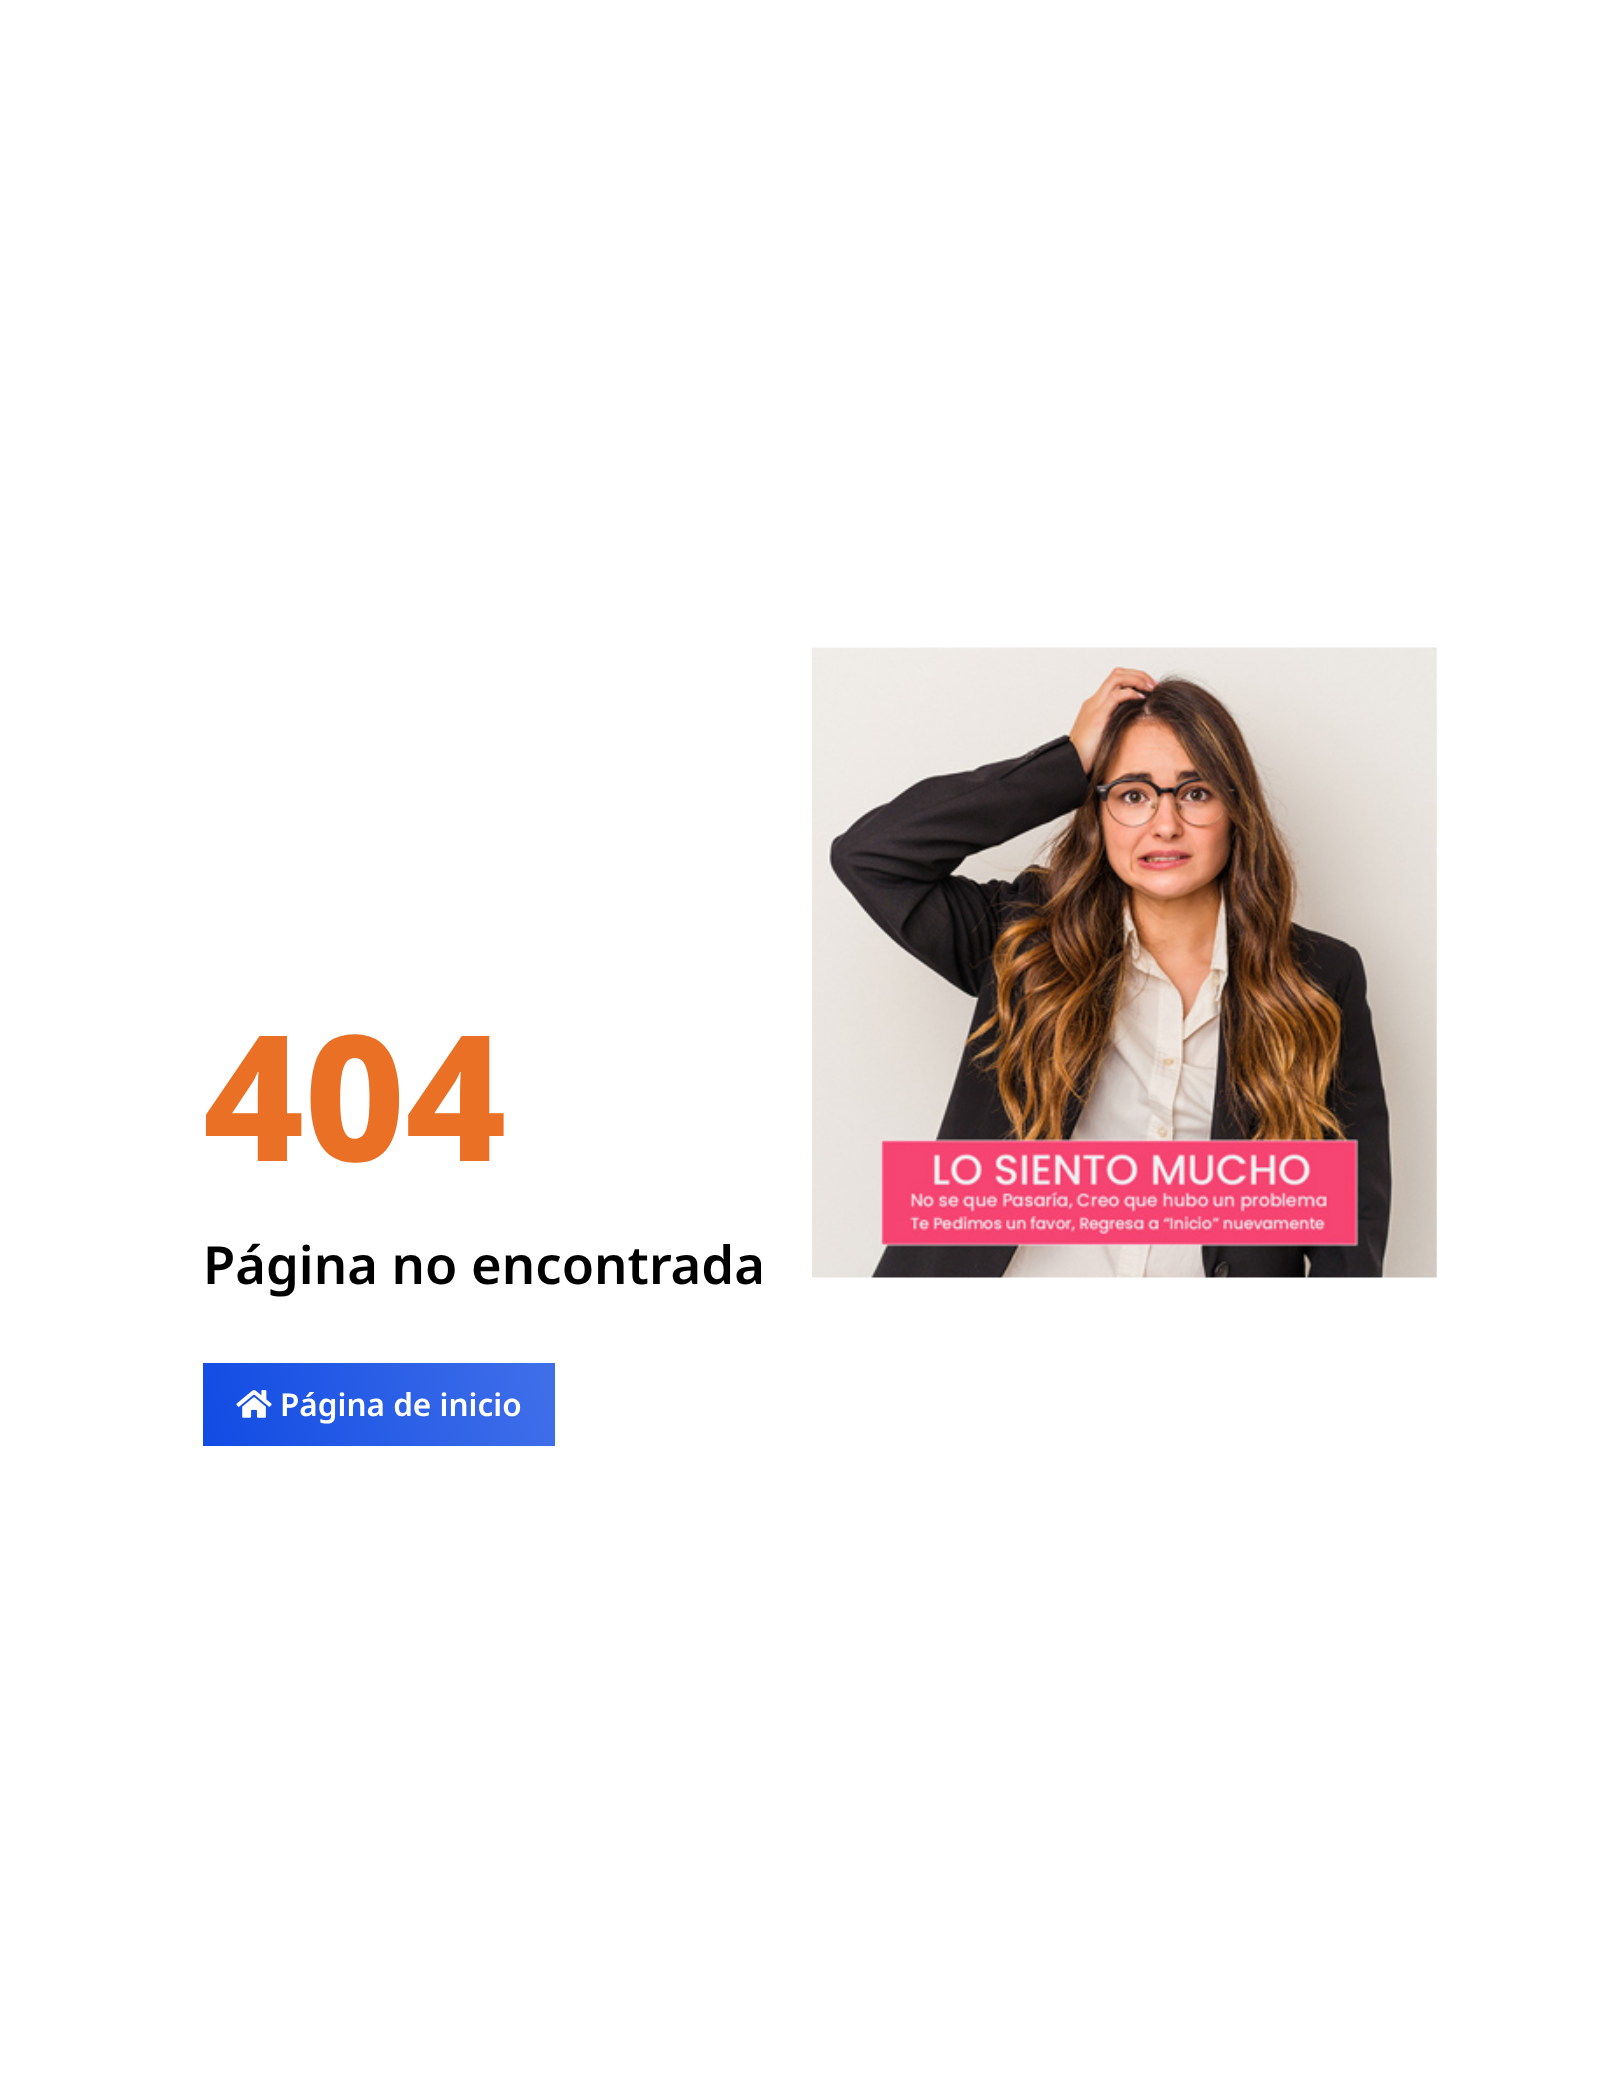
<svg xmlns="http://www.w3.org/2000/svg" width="1612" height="2092">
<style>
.a{font:800 175px Noto Sans;fill:#e97025}
.b{font:600 52.5px Noto Sans;fill:#000}
.c{font:600 31.5px Noto Sans;fill:#fff}
</style>
<defs>
<linearGradient id="g1" gradientUnits="userSpaceOnUse" x1="554" y1="1359" x2="193" y2="1452"><stop offset="0.04" stop-color="#3f6ee9"/><stop offset="1" stop-color="#0f4ae3"/></linearGradient>
</defs>
<rect width="100%" height="100%" fill="#fff"/>
<image href="1.png" x="812" y="647" width="625" height="631"/>
<path fill="url(#g1)" d="M203 1363h352v83H203z"/>
<image href="2.png" x="236" y="1390" width="36" height="28"/>
<text class="a" x="203" y="1161">404</text>
<text class="b" x="203" y="1284">Página no encontrada</text>
<text class="c" x="280" y="1416">Página de inicio</text>
</svg>
